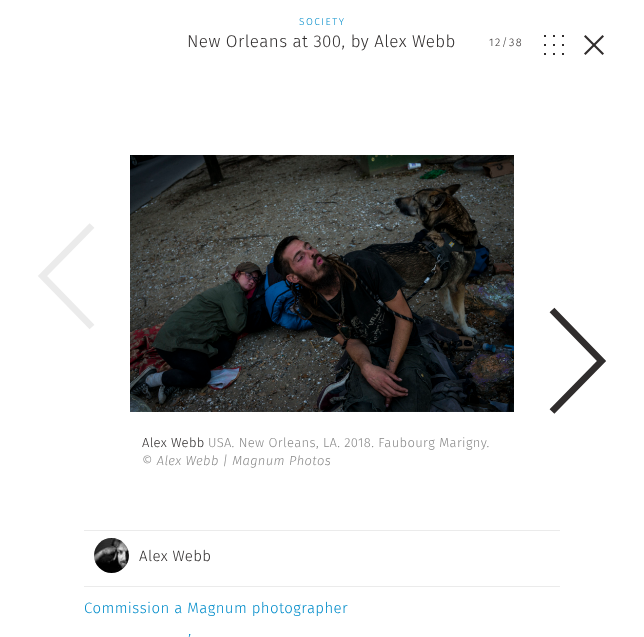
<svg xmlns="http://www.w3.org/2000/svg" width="644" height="637">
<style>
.a{font:300 10px Fira Sans;letter-spacing:1.5px;fill:#008cca}
.b{font:300 17px Fira Sans;letter-spacing:0.4px;fill:#302d2d}
.c{font:300 11px Fira Sans;letter-spacing:1.5px;fill:#302d2d}
.d{font:300 13px Fira Sans;letter-spacing:0.35px;fill:#302d2d}
.e{font:300 13px Fira Sans;letter-spacing:0.35px;fill:#898989}
.f{font:italic 300 13px Fira Sans;letter-spacing:0.35px;fill:#898989}
.g{font:300 15px Fira Sans;letter-spacing:0.4px;fill:#302d2d}
.h{font:300 15px Fira Sans;letter-spacing:0.4px;fill:#008cca}
</style>
<rect width="100%" height="100%" fill="#fff"/>
<image href="1.png" x="544" y="35" width="20" height="20"/>
<path fill="#302d2d" d="M585.5 35l18.5 18.5l-1.5 1.5l-18.5-18.5z"/>
<path fill="#302d2d" d="M584 53.5l18.5-18.5l1.5 1.5l-18.5 18.5z"/>
<path fill="none" stroke="#ebebeb" stroke-width="6.7" d="M92 225.5l-49.5 50.5l49.5 51"/>
<path fill="none" stroke="#302d2d" stroke-width="6.7" d="M552 411.5l49.5-50.5l-49.5-51"/>
<image href="2.png" x="130" y="155" width="384" height="257"/>
<path fill="#ebebeb" d="M84 530h476v1H84z"/>
<image href="3.png" x="94" y="538" width="35" height="35"/>
<path fill="#ebebeb" d="M84 586h476v1H84z"/>
<text class="a" x="299" y="25">SOCIETY</text>
<text class="b" x="187" y="47">New Orleans at 300, by Alex Webb</text>
<text class="c" x="489" y="46">12/</text>
<text class="c" x="509" y="46">38</text>
<text class="d" x="142" y="447">Alex Webb</text>
<text class="e" x="208" y="447">USA. New Orleans, LA. 2018. Faubourg Marigny.</text>
<text class="f" x="142" y="465">© Alex Webb | Magnum Photos</text>
<text class="g" x="139" y="561">Alex Webb</text>
<text class="h" x="84" y="613">Commission a Magnum photographer</text>
<text class="h" x="188" y="645">’</text>
</svg>
